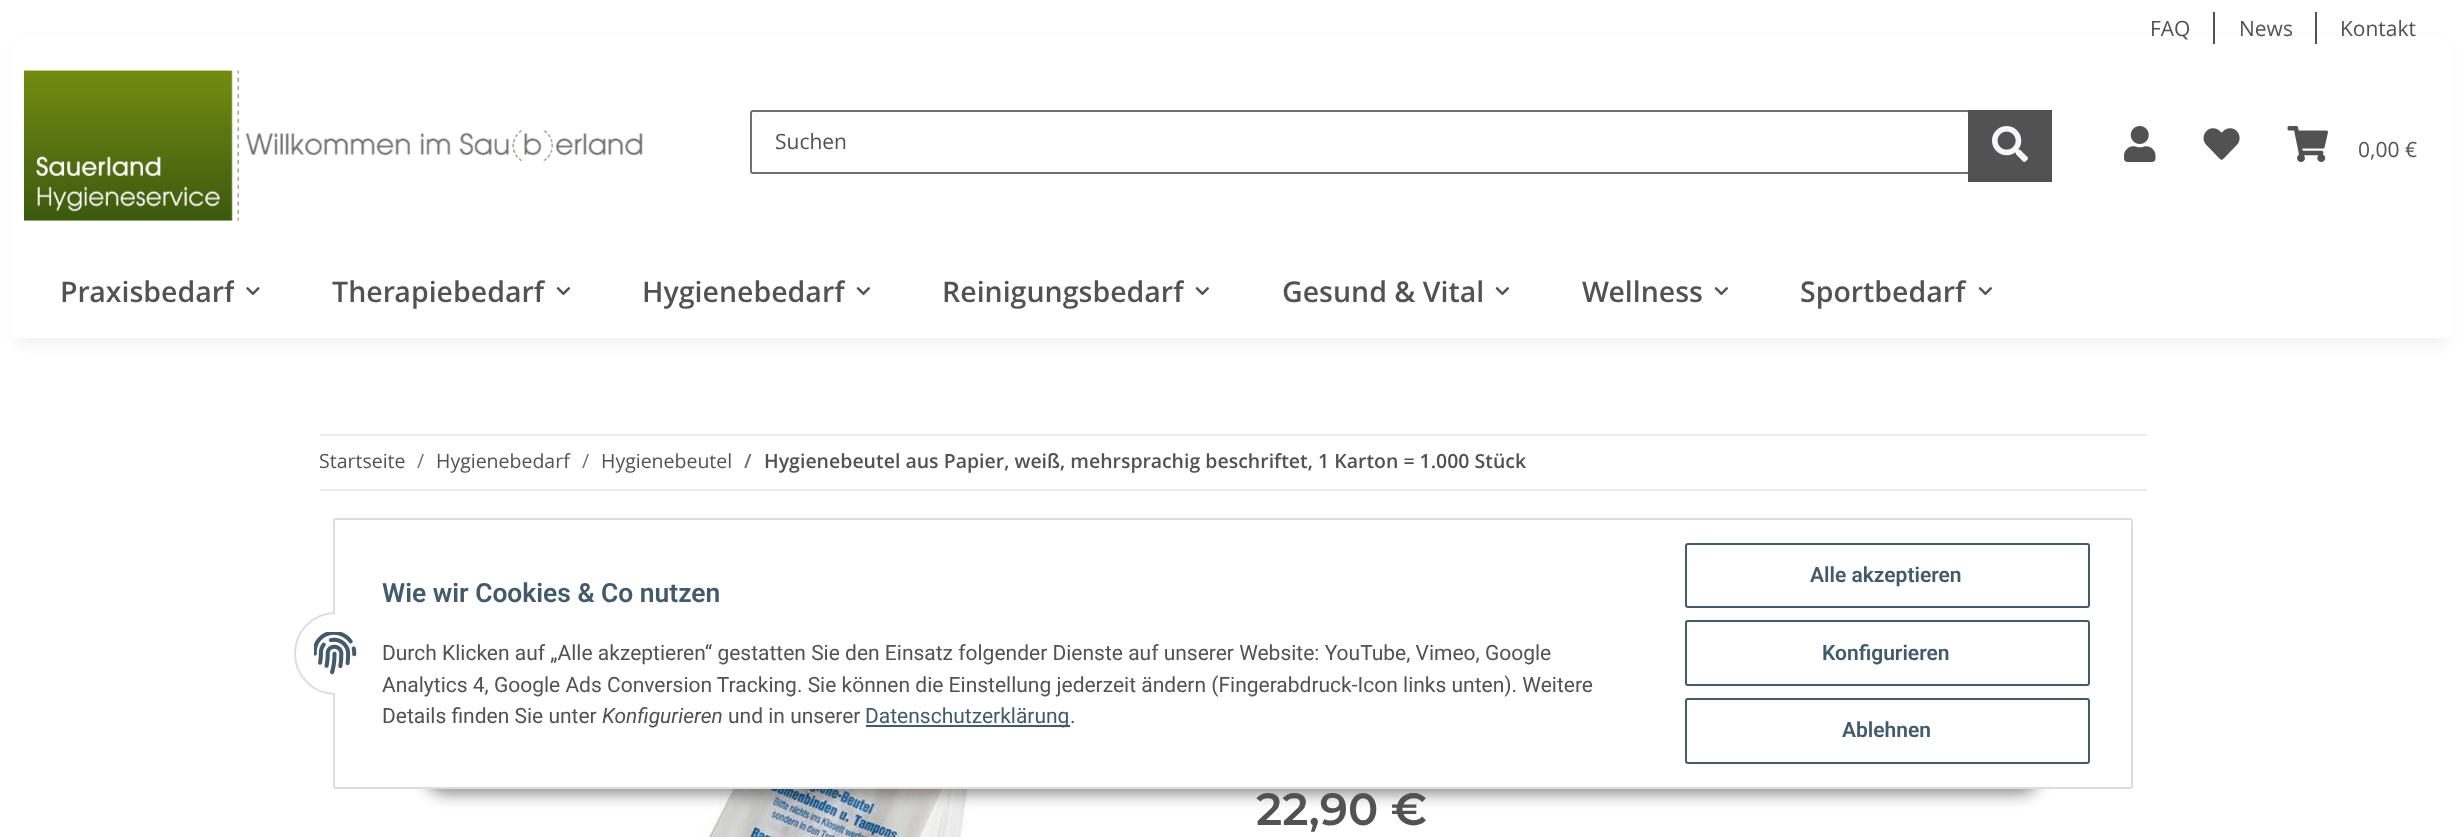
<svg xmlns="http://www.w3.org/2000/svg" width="2464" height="837">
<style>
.a{font:21px Open Sans;fill:#525252}
.b{font:600 28.5px Open Sans;fill:#525252}
.c{font:19.5px Open Sans;fill:#525252}
.d{font:19.5px Open Sans;fill:#707070}
.e{font:600 19.5px Open Sans;fill:#707070}
.f{font:600 19.5px Open Sans;fill:#525252}
.g{font:600 45px Montserrat;fill:#525252}
.h{font:600 26.4px Roboto;fill:#435a6b}
.i{font:21px Roboto;fill:#525252}
.j{font:italic 21px Roboto;fill:#525252}
.k{font:21px Roboto;fill:#435a6b}
.l{font:600 21px Roboto;fill:#435a6b}
</style>
<defs>
<clipPath id="clip1"><path d="M60 270h174v44H60z"/></clipPath>
<clipPath id="clip2"><path d="M642 270h203v44H642z"/></clipPath>
<clipPath id="clip3"><path d="M942 270h242v44H942z"/></clipPath>
</defs>
<rect width="100%" height="100%" fill="#fff"/>
<path fill="#0000000f" filter="blur(7px)" d="M18 42h2429v302H18z"/>
<path fill="#fff" d="M11 35h2443v303H11z"/>
<path fill="#525252" d="M2213 12h2v32H2213z"/>
<path fill="#525252" d="M2315 12h2v32H2315z"/>
<image href="1.png" x="24" y="70" width="619" height="151"/>
<rect fill="none" stroke="#707070" stroke-width="2" x="751" y="111" width="1218" height="62" rx="2"/>
<path fill="#525252" d="M1968 110h84v72H1968z"/>
<image href="2.png" x="1992" y="126" width="36" height="36"/>
<image href="3.png" x="2124" y="126" width="32" height="36"/>
<image href="4.png" x="2203" y="128" width="37" height="32"/>
<image href="5.png" x="2287" y="126" width="41" height="36"/>
<image href="6.png" x="246" y="287" width="14" height="9"/>
<image href="7.png" x="556" y="287" width="15" height="9"/>
<image href="7.png" x="856" y="287" width="15" height="9"/>
<image href="7.png" x="1195" y="287" width="15" height="9"/>
<image href="7.png" x="1495" y="287" width="15" height="9"/>
<image href="7.png" x="1714" y="287" width="15" height="9"/>
<image href="7.png" x="1978" y="287" width="15" height="9"/>
<path fill="#ebebeb" d="M320 434h1827v2H320z"/>
<path fill="#ebebeb" d="M320 489h1827v2H320z"/>
<image href="8.png" x="702" y="789" width="271" height="48"/>
<rect fill="#00000073" filter="blur(7.5px)" x="423" y="746" width="1619" height="48" rx="24"/>
<rect fill="#fff" stroke="#ddd" stroke-width="2" x="334" y="519" width="1798" height="269" rx="2"/>
<circle fill="#fff" stroke="#ddd" stroke-width="2" cx="335.5" cy="653.5" r="40.5"/>
<path fill="#fff" d="M335 612h42v83H335z"/>
<image href="9.png" x="314" y="632" width="43" height="43"/>
<path fill="#435a6b" d="M866 725h204v2H866z"/>
<rect fill="none" stroke="#435a6b" stroke-width="2" x="1686" y="544" width="403" height="63" rx="2"/>
<rect fill="none" stroke="#435a6b" stroke-width="2" x="1686" y="621" width="403" height="64" rx="2"/>
<rect fill="none" stroke="#435a6b" stroke-width="2" x="1686" y="699" width="403" height="64" rx="2"/>
<text class="a" x="2150" y="36">FAQ</text>
<text class="a" x="2239" y="36">News</text>
<text class="a" x="2340" y="36">Kontakt</text>
<text class="a" x="775" y="149">Suchen</text>
<text class="a" x="2358" y="157">0,00 €</text>
<g clip-path="url(#clip1)">
<text class="b" x="60" y="302">Praxisbedarf</text>
</g>
<text class="b" x="332" y="302">Therapiebedarf</text>
<g clip-path="url(#clip2)">
<text class="b" x="642" y="302">Hygienebedarf</text>
</g>
<g clip-path="url(#clip3)">
<text class="b" x="942" y="302">Reinigungsbedarf</text>
</g>
<text class="b" x="1282" y="302">Gesund &amp; Vital</text>
<text class="b" x="1582" y="302">Wellness</text>
<text class="b" x="1800" y="302">Sportbedarf</text>
<text class="c" x="319" y="468">Startseite</text>
<text class="d" x="417" y="468">/</text>
<text class="c" x="436" y="468">Hygienebedarf</text>
<text class="d" x="582" y="468">/</text>
<text class="c" x="601" y="468">Hygienebeutel</text>
<text class="e" x="744" y="468">/</text>
<text class="f" x="764" y="468">Hygienebeutel aus Papier, weiß, mehrsprachig beschriftet, 1 Karton = 1.000 Stück</text>
<text class="g" x="1256" y="825">22,90 €</text>
<text class="h" x="382" y="602">Wie wir Cookies &amp; Co nutzen</text>
<text class="i" x="382" y="660">Durch Klicken auf „Alle akzeptieren“ gestatten Sie den Einsatz folgender Dienste auf unserer Website: YouTube, Vimeo, Google</text>
<text class="i" x="382" y="692">Analytics 4, Google Ads Conversion Tracking. Sie können die Einstellung jederzeit ändern (Fingerabdruck-Icon links unten). Weitere</text>
<text class="i" x="382" y="723">Details finden Sie unter</text>
<text class="j" x="602" y="723">Konfigurieren</text>
<text class="i" x="728" y="723">und in unserer</text>
<text class="k" x="865" y="723">Datenschutzerklärung</text>
<text class="i" x="1070" y="723">.</text>
<text class="l" x="1810" y="582">Alle akzeptieren</text>
<text class="l" x="1822" y="660">Konfigurieren</text>
<text class="l" x="1842" y="737">Ablehnen</text>
</svg>
